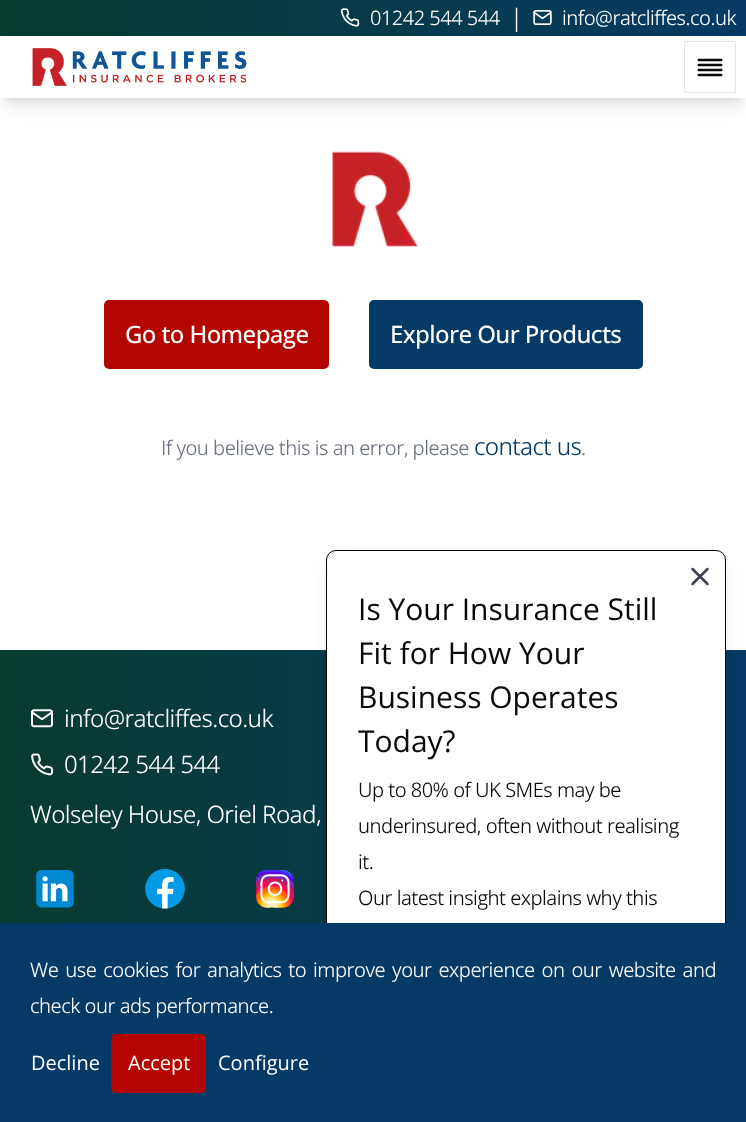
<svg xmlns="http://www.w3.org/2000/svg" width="746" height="1122">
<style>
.a{font:300 20px Open Sans;letter-spacing:-0.5px;fill:#fff}
.b{font:300 24px Open Sans;letter-spacing:-0.6px;fill:#fff}
.c{font:500 24px Open Sans;letter-spacing:-0.6px;fill:#fff}
.d{font:300 20px Open Sans;letter-spacing:-0.5px;fill:#6b7280}
.e{font:300 24px Open Sans;letter-spacing:-0.6px;fill:#043a65}
.f{font:30px Open Sans;fill:#0a0a0a}
.g{font:300 20px Open Sans;letter-spacing:-0.5px;fill:#0a0a0a}
.h{font:20px Open Sans;fill:#fff}
</style>
<defs>
<linearGradient id="g1" gradientUnits="userSpaceOnUse" x1="0" y1="18" x2="746" y2="18"><stop offset="0" stop-color="#083b2f"/><stop offset="1" stop-color="#043a65"/></linearGradient>
<linearGradient id="g2" gradientUnits="userSpaceOnUse" x1="0" y1="924" x2="746" y2="924"><stop offset="0" stop-color="#083b2f"/><stop offset="1" stop-color="#043a65"/></linearGradient>
</defs>
<rect width="100%" height="100%" fill="#fff"/>
<path fill="url(#g1)" d="M0 0h746v36H0z"/>
<image href="1.png" x="340" y="8" width="20" height="19"/>
<image href="2.png" x="533" y="10" width="19" height="15"/>
<path fill="#0000001a" filter="blur(4px)" d="M5 46h736v52H5z"/>
<path fill="#0000001a" filter="blur(9.5px)" d="M4 53h739v53H4z"/>
<path fill="#fff" d="M0 39h746v59H0z"/>
<image href="3.png" x="32" y="48" width="215" height="38"/>
<path fill="none" stroke="#e5e5e5" d="M684.5 41.5h51v51H684.5z"/>
<image href="4.png" x="697" y="58" width="26" height="19"/>
<image href="5.png" x="332" y="151" width="86" height="96"/>
<rect fill="#b30600" x="104" y="300" width="225" height="69" rx="5"/>
<rect fill="#043a65" x="369" y="300" width="274" height="69" rx="5"/>
<path fill="url(#g2)" d="M0 650h746v273H0z"/>
<image href="6.png" x="31" y="709" width="22" height="19"/>
<image href="7.png" x="31" y="753" width="22" height="23"/>
<image href="8.png" x="36" y="870" width="38" height="38"/>
<image href="9.png" x="145" y="869" width="40" height="40"/>
<image href="10.png" x="256" y="870" width="38" height="38"/>
<rect fill="#0000001a" filter="blur(9.5px)" x="330" y="566" width="393" height="545" rx="6"/>
<rect fill="#fff" stroke="#000" x="326.5" y="550.5" width="399" height="552" rx="9.5"/>
<path fill="none" stroke="#374151" stroke-width="2.5" stroke-linecap="round" stroke-linejoin="round" d="M707.5 569l-15 15m0-15l15 15"/>
<path fill="#043a65" d="M0 923h746v199H0z"/>
<rect fill="#b30600" x="111" y="1034" width="95" height="59" rx="5"/>
<text class="a" x="370" y="25">01242 544 544</text>
<text class="b" x="510" y="26">|</text>
<text class="a" x="562" y="25">info@ratcliffes.co.uk</text>
<text class="c" x="125" y="343">Go to Homepage</text>
<text class="c" x="390" y="343">Explore Our Products</text>
<text class="d" x="161" y="455">If you believe this is an error, please</text>
<text class="e" x="474" y="455">contact us</text>
<text class="d" x="581" y="455">.</text>
<text class="b" x="64" y="727">info@ratcliffes.co.uk</text>
<text class="b" x="64" y="773">01242 544 544</text>
<text class="b" x="30" y="823">Wolseley House, Oriel Road,</text>
<text class="f" x="358" y="620">Is Your Insurance Still</text>
<text class="f" x="358" y="664">Fit for How Your</text>
<text class="f" x="358" y="708">Business Operates</text>
<text class="f" x="358" y="752">Today?</text>
<text class="g" x="358" y="797">Up to 80% of UK SMEs may be</text>
<text class="g" x="358" y="833">underinsured, often without realising</text>
<text class="g" x="358" y="869">it.</text>
<text class="g" x="358" y="905">Our latest insight explains why this</text>
<text class="a" x="30" y="977" word-spacing="2.25">We use cookies for analytics to improve your experience on our website and</text>
<text class="a" x="30" y="1013">check our ads performance.</text>
<text class="h" x="31" y="1070">Decline</text>
<text class="h" x="128" y="1070">Accept</text>
<text class="h" x="218" y="1070">Configure</text>
</svg>
